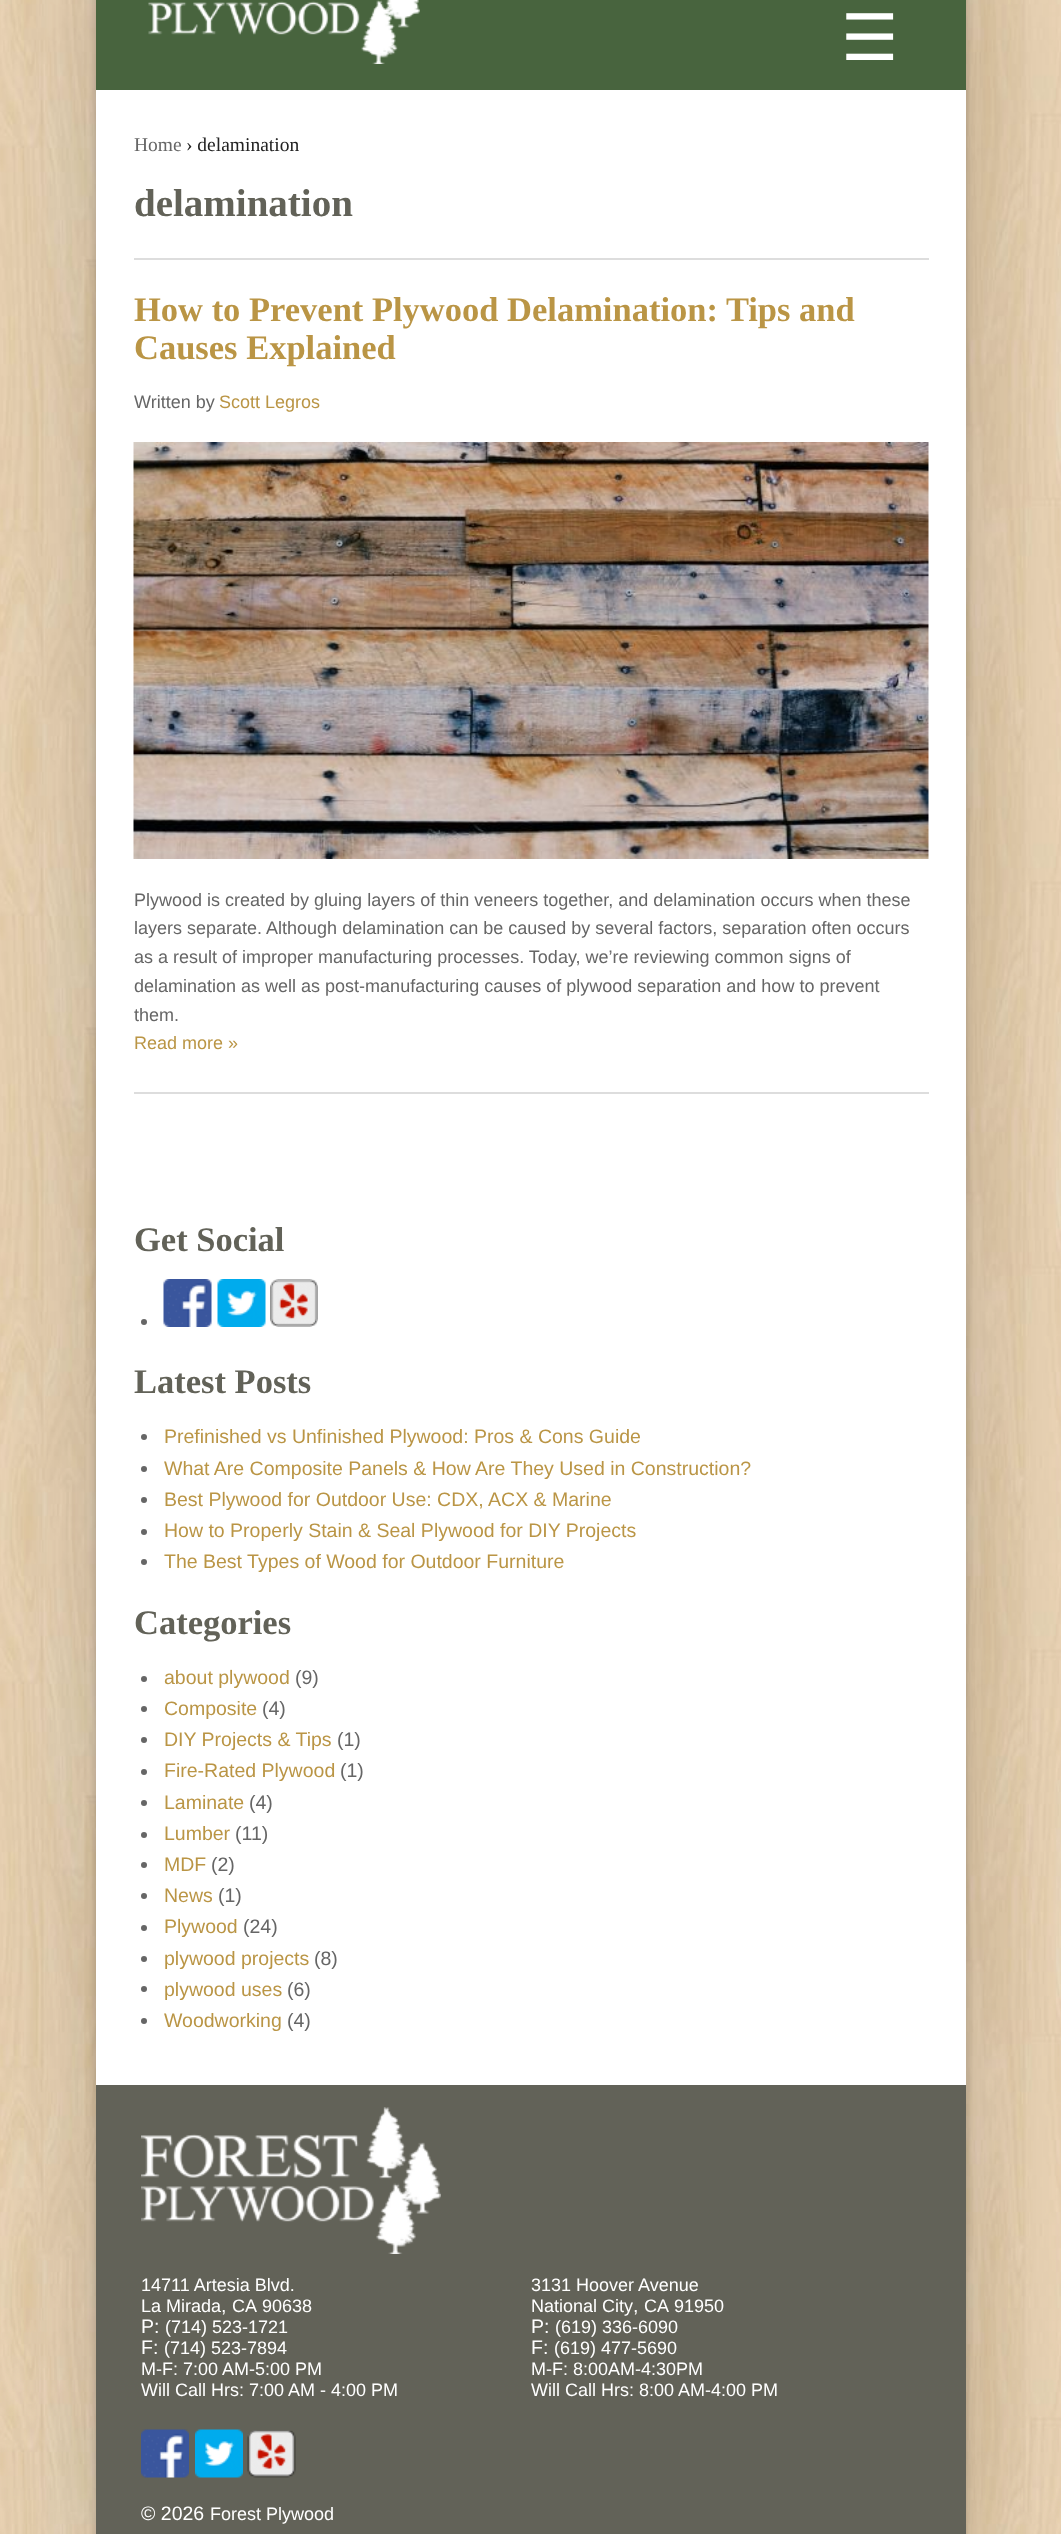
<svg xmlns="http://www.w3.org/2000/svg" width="1061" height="2534">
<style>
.a{font:64px DejaVu Sans;fill:#fff}
.b{font:19.5px Tinos;fill:#666}
.c{font:19.5px Tinos;fill:#222}
.d{font:bold 39px Tinos;fill:#626258}
.e{font:bold 34.5px Tinos;fill:#ba9545}
.f{font:18px Liberation Sans;fill:#666}
.g{font:18px Liberation Sans;fill:#ba9545}
.h{font:bold 34.5px Tinos;fill:#626258}
.i{font:19.5px Liberation Sans;fill:#ba9545}
.j{font:19.5px Liberation Sans;fill:#666}
.k{font:18px Liberation Sans;fill:#fff}
.l{font:19.5px Liberation Sans;fill:#fff}
</style>
<rect width="100%" height="100%" fill="#fff"/>
<image href="1.png" x="0" y="0" width="1061" height="2534"/>
<path fill="#00000033" filter="blur(5px)" d="M96 -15h870v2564H96z"/>
<path fill="#00000033" filter="blur(75px)" d="M96 -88h870v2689H96z"/>
<path fill="#fff" d="M96 90h870v1995H96z"/>
<path fill="#48643e" d="M96 0h870v90H96z"/>
<image href="2.png" x="148" y="0" width="272" height="64"/>
<path fill="#ddd" d="M134 258h795v2H134z"/>
<image href="3.png" x="133" y="442" width="796" height="417"/>
<path fill="#ddd" d="M134 1092h795v2H134z"/>
<circle fill="#666" cx="144" cy="1322" r="3"/>
<image href="4.png" x="163" y="1279" width="49" height="48"/>
<image href="5.png" x="217" y="1279" width="49" height="48"/>
<image href="6.png" x="270" y="1279" width="48" height="48"/>
<circle fill="#666" cx="144" cy="1437" r="3"/>
<circle fill="#666" cx="144" cy="1469" r="3"/>
<circle fill="#666" cx="144" cy="1500" r="3"/>
<circle fill="#666" cx="144" cy="1532" r="3"/>
<circle fill="#666" cx="144" cy="1562" r="3"/>
<circle fill="#666" cx="144" cy="1679" r="3"/>
<circle fill="#666" cx="144" cy="1709" r="3"/>
<circle fill="#666" cx="144" cy="1740" r="3"/>
<circle fill="#666" cx="144" cy="1772" r="3"/>
<circle fill="#666" cx="144" cy="1803" r="3"/>
<circle fill="#666" cx="144" cy="1835" r="3"/>
<circle fill="#666" cx="144" cy="1865" r="3"/>
<circle fill="#666" cx="144" cy="1896" r="3"/>
<circle fill="#666" cx="144" cy="1928" r="3"/>
<circle fill="#666" cx="144" cy="1959" r="3"/>
<circle fill="#666" cx="144" cy="1989" r="3"/>
<circle fill="#666" cx="144" cy="2021" r="3"/>
<path fill="#626258" d="M96 2085h870v449H96z"/>
<image href="7.png" x="141" y="2107" width="300" height="147"/>
<image href="8.png" x="141" y="2429" width="48" height="49"/>
<image href="9.png" x="195" y="2429" width="48" height="49"/>
<image href="10.png" x="247" y="2430" width="49" height="48"/>
<text class="a" x="841" y="60">☰</text>
<text class="b" x="134" y="151">Home</text>
<text class="c" x="186" y="151">› delamination</text>
<text class="d" x="134" y="216">delamination</text>
<text class="e" x="134" y="321">How to Prevent Plywood Delamination: Tips and</text>
<text class="e" x="134" y="359">Causes Explained</text>
<text class="f" x="134" y="408">Written by</text>
<text class="g" x="219" y="408">Scott Legros</text>
<text class="f" x="134" y="906">Plywood is created by gluing layers of thin veneers together, and delamination occurs when these</text>
<text class="f" x="134" y="934">layers separate. Although delamination can be caused by several factors, separation often occurs</text>
<text class="f" x="134" y="963">as a result of improper manufacturing processes. Today, we’re reviewing common signs of</text>
<text class="f" x="134" y="992">delamination as well as post-manufacturing causes of plywood separation and how to prevent</text>
<text class="f" x="134" y="1021">them.</text>
<text class="g" x="134" y="1049">Read more »</text>
<text class="h" x="134" y="1251">Get Social</text>
<text class="h" x="134" y="1393">Latest Posts</text>
<text class="i" x="164" y="1443">Prefinished vs Unfinished Plywood: Pros &amp; Cons Guide</text>
<text class="i" x="164" y="1475">What Are Composite Panels &amp; How Are They Used in Construction?</text>
<text class="i" x="164" y="1506">Best Plywood for Outdoor Use: CDX, ACX &amp; Marine</text>
<text class="i" x="164" y="1537">How to Properly Stain &amp; Seal Plywood for DIY Projects</text>
<text class="i" x="164" y="1568">The Best Types of Wood for Outdoor Furniture</text>
<text class="h" x="134" y="1634">Categories</text>
<text class="i" x="164" y="1684">about plywood</text>
<text class="j" x="295" y="1684">(9)</text>
<text class="i" x="164" y="1715">Composite</text>
<text class="j" x="262" y="1715">(4)</text>
<text class="i" x="164" y="1746">DIY Projects &amp; Tips</text>
<text class="j" x="337" y="1746">(1)</text>
<text class="i" x="164" y="1777">Fire-Rated Plywood</text>
<text class="j" x="340" y="1777">(1)</text>
<text class="i" x="164" y="1809">Laminate</text>
<text class="j" x="249" y="1809">(4)</text>
<text class="i" x="164" y="1840">Lumber</text>
<text class="j" x="235" y="1840">(11)</text>
<text class="i" x="164" y="1871">MDF</text>
<text class="j" x="211" y="1871">(2)</text>
<text class="i" x="164" y="1902">News</text>
<text class="j" x="218" y="1902">(1)</text>
<text class="i" x="164" y="1933">Plywood</text>
<text class="j" x="243" y="1933">(24)</text>
<text class="i" x="164" y="1965">plywood projects</text>
<text class="j" x="314" y="1965">(8)</text>
<text class="i" x="164" y="1996">plywood uses</text>
<text class="j" x="287" y="1996">(6)</text>
<text class="i" x="164" y="2027">Woodworking</text>
<text class="j" x="287" y="2027">(4)</text>
<text class="k" x="141" y="2291">14711 Artesia Blvd.</text>
<text class="k" x="141" y="2312">La Mirada</text>
<text class="l" x="221" y="2312">,</text>
<text class="k" x="232" y="2312">CA</text>
<text class="k" x="262" y="2312">90638</text>
<text class="l" x="141" y="2333">P:</text>
<text class="k" x="165" y="2333">(714) 523-1721</text>
<text class="l" x="141" y="2354">F:</text>
<text class="k" x="164" y="2354">(714) 523-7894</text>
<text class="k" x="141" y="2375">M-F: 7:00 AM-5:00 PM</text>
<text class="k" x="141" y="2396">Will Call Hrs: 7:00 AM - 4:00 PM</text>
<text class="k" x="531" y="2291">3131 Hoover Avenue</text>
<text class="k" x="531" y="2312">National City</text>
<text class="l" x="633" y="2312">,</text>
<text class="k" x="644" y="2312">CA</text>
<text class="k" x="674" y="2312">91950</text>
<text class="l" x="531" y="2333">P:</text>
<text class="k" x="555" y="2333">(619) 336-6090</text>
<text class="l" x="531" y="2354">F:</text>
<text class="k" x="554" y="2354">(619) 477-5690</text>
<text class="k" x="531" y="2375">M-F: 8:00AM-4:30PM</text>
<text class="k" x="531" y="2396">Will Call Hrs: 8:00 AM-4:00 PM</text>
<text class="l" x="141" y="2520">© 2026</text>
<text class="k" x="210" y="2520">Forest Plywood</text>
</svg>
